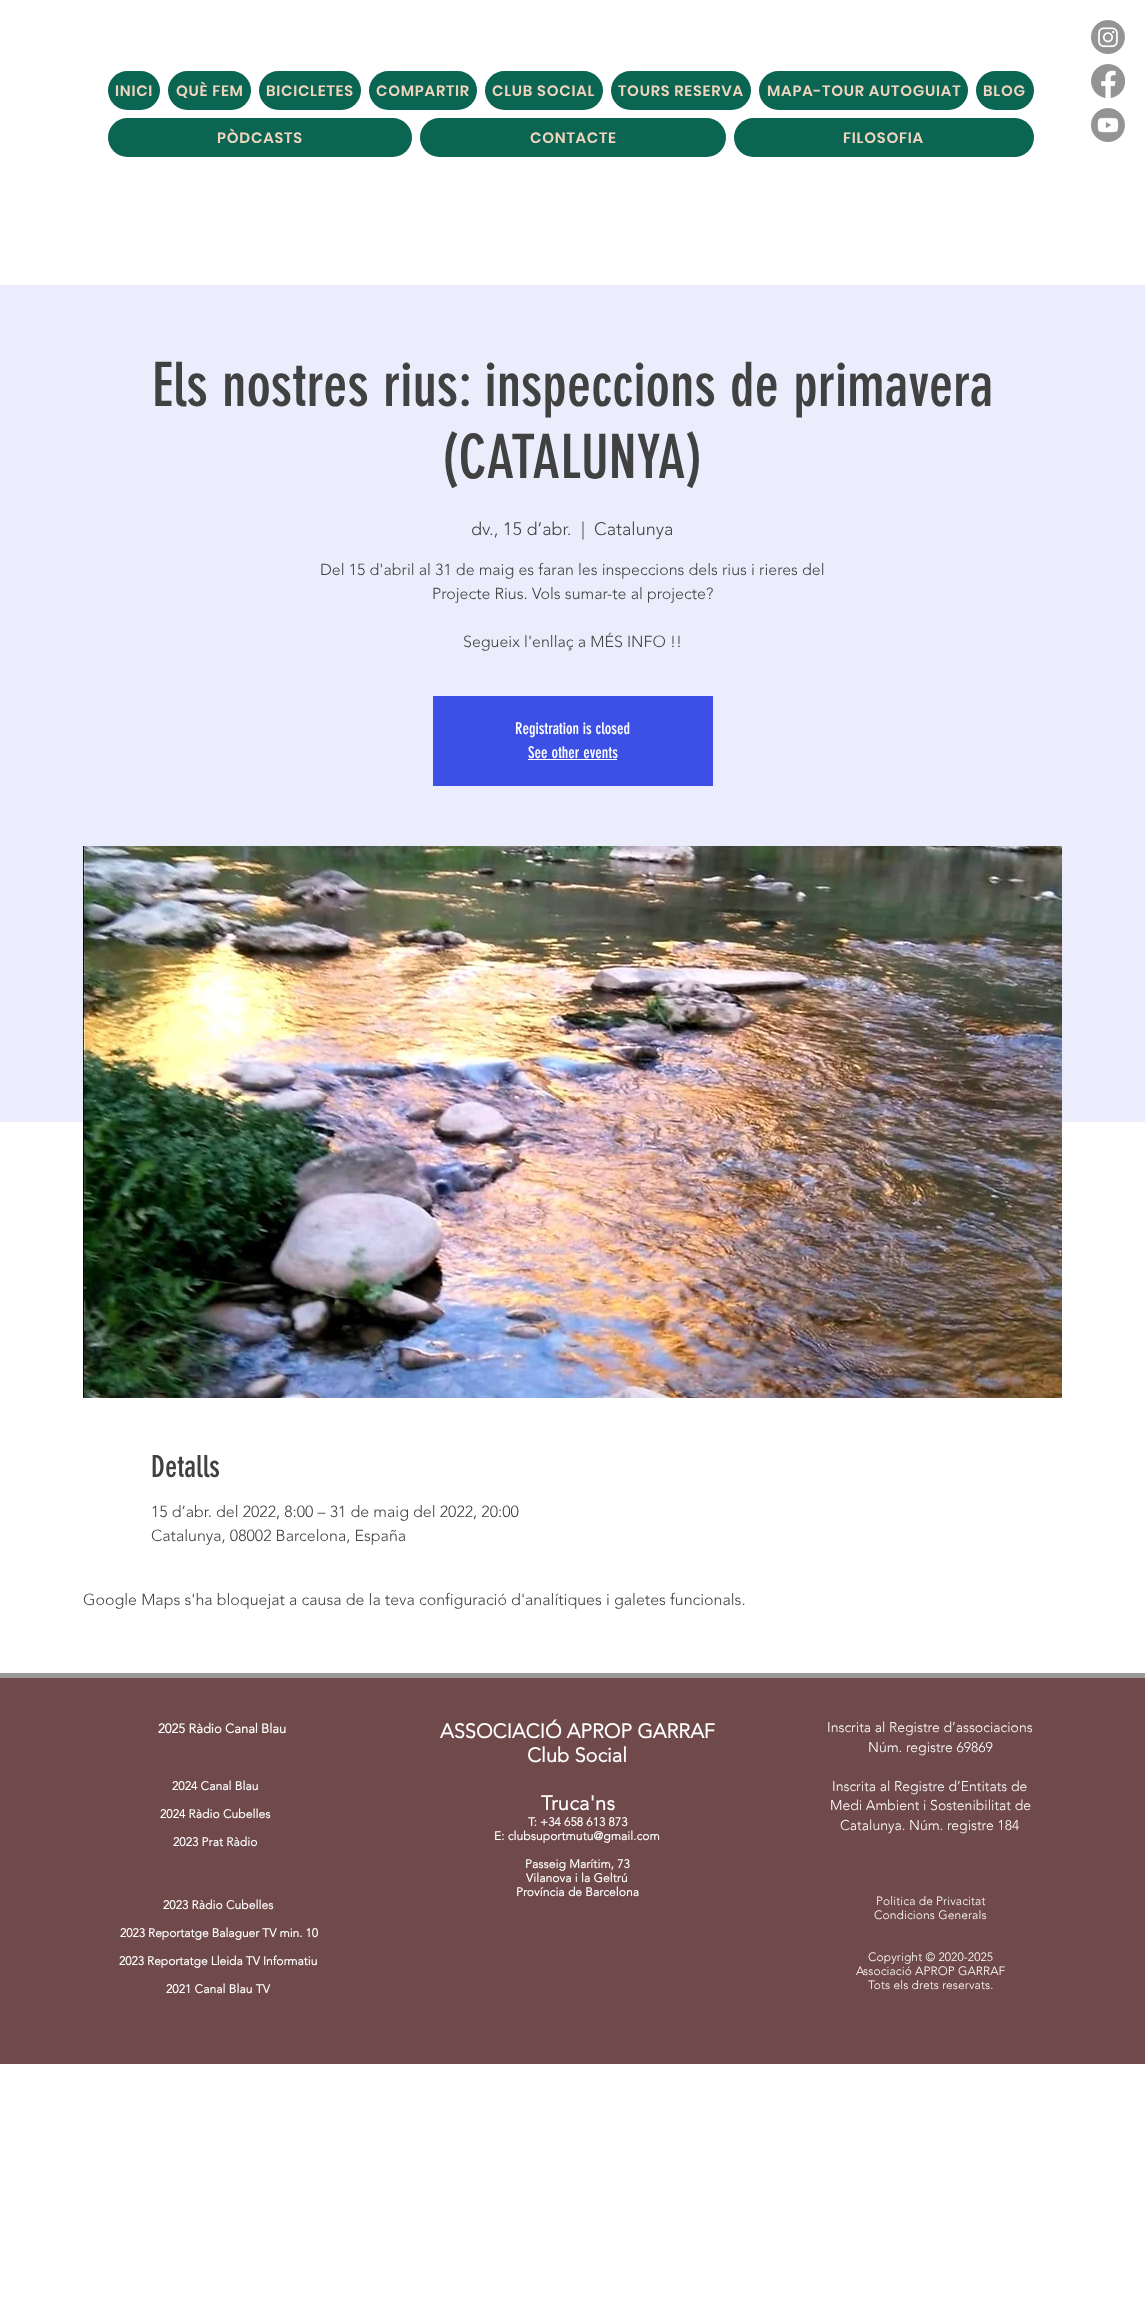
<svg xmlns="http://www.w3.org/2000/svg" width="1145" height="2315">
<style>
.a{font:600 15px Poppins;letter-spacing:0.75px;fill:#f1d4bd}
.b{font:60px 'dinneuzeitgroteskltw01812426';fill:#414141}
.c{font:300 18px 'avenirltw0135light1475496';fill:#414141}
.d{font:300 16px 'avenirltw0135light1475496';fill:#414141}
.e{font:16px 'dinneuzeitgroteskltw01812426';fill:#fff}
.f{font:30px 'dinneuzeitgroteskltw01812426';fill:#414141}
.g{font:bold 13px 'avenirltw0135light1475496';fill:#fff}
.h{font:bold 20px 'avenirltw0135light1475496';fill:#fff}
.i{font:bold 20px 'avenirltw0135light1475496';letter-spacing:0.25px;fill:#fff}
.j{font:bold 12px 'avenirltw0135light1475496';letter-spacing:0.1px;fill:#fff}
.k{font:300 14px 'avenirltw0135light1475496';fill:#fff}
.l{font:bold 12px 'avenirltw0135light1475496';fill:#fff}
.m{font:300 12px 'avenirltw0135light1475496';letter-spacing:0.1px;fill:#fff}
</style>
<rect width="100%" height="100%" fill="#fff"/>
<rect fill="#0b6553" x="108" y="71" width="52" height="39" rx="19.5"/>
<rect fill="#0b6553" x="168" y="71" width="83" height="39" rx="19.5"/>
<rect fill="#0b6553" x="259" y="71" width="102" height="39" rx="19.5"/>
<rect fill="#0b6553" x="369" y="71" width="108" height="39" rx="19.5"/>
<rect fill="#0b6553" x="485" y="71" width="118" height="39" rx="19.5"/>
<rect fill="#0b6553" x="611" y="71" width="140" height="39" rx="19.5"/>
<rect fill="#0b6553" x="759" y="71" width="209" height="39" rx="19.5"/>
<rect fill="#0b6553" x="976" y="71" width="58" height="39" rx="19.5"/>
<rect fill="#0b6553" x="108" y="118" width="304" height="39" rx="19.5"/>
<rect fill="#0b6553" x="420" y="118" width="306" height="39" rx="19.5"/>
<rect fill="#0b6553" x="734" y="118" width="300" height="39" rx="19.5"/>
<image href="1.png" x="1091" y="20" width="34" height="34"/>
<image href="2.png" x="1091" y="64" width="34" height="34"/>
<image href="3.png" x="1091" y="108" width="34" height="34"/>
<path fill="#ebedfc" d="M0 285h1145v837H0z"/>
<path fill="#3c50e6" d="M433 696h280v90H433z"/>
<path fill="#fff" d="M528 759h89v1H528z"/>
<image href="4.png" x="83" y="846" width="979" height="552"/>
<path fill="#999997" d="M0 1673h1145v5H0z"/>
<path fill="#704a4a" d="M0 1678h1145v386H0z"/>
<text class="a" x="115" y="96">INICI</text>
<text class="a" x="176" y="96">QUÈ FEM</text>
<text class="a" x="266" y="96">BICICLETES</text>
<text class="a" x="376" y="96">COMPARTIR</text>
<text class="a" x="492" y="96">CLUB SOCIAL</text>
<text class="a" x="618" y="96">TOURS RESERVA</text>
<text class="a" x="767" y="96">MAPA-TOUR AUTOGUIAT</text>
<text class="a" x="983" y="96">BLOG</text>
<text class="a" x="217" y="143">PÒDCASTS</text>
<text class="a" x="530" y="143">CONTACTE</text>
<text class="a" x="843" y="143">FILOSOFIA</text>
<text class="b" x="152" y="406">Els nostres rius: inspeccions de primavera</text>
<text class="b" x="441" y="478">(CATALUNYA)</text>
<text class="c" x="471" y="535">dv., 15 d’abr.</text>
<text class="c" x="581" y="535">|</text>
<text class="c" x="594" y="535">Catalunya</text>
<text class="d" x="320" y="575">Del 15 d'abril al 31 de maig es faran les inspeccions dels rius i rieres del</text>
<text class="d" x="432" y="599">Projecte Rius. Vols sumar-te al projecte?</text>
<text class="d" x="463" y="647">Segueix l'enllaç a MÉS INFO !!</text>
<text class="e" x="515" y="734">Registration is closed</text>
<text class="e" x="528" y="758">See other events</text>
<text class="f" x="151" y="1477">Detalls</text>
<text class="d" x="151" y="1517">15 d’abr. del 2022, 8:00 – 31 de maig del 2022, 20:00</text>
<text class="d" x="151" y="1541">Catalunya, 08002 Barcelona, España</text>
<text class="d" x="83" y="1605">Google Maps s'ha bloquejat a causa de la teva configuració d'analítiques i galetes funcionals.</text>
<text class="g" x="158" y="1733">2025 Ràdio</text>
<text class="g" x="225" y="1733">Canal</text>
<text class="g" x="261" y="1733">Blau</text>
<text class="h" x="440" y="1738">ASSOCIACIÓ APROP GARRAF</text>
<text class="h" x="527" y="1762">Club Social</text>
<text class="i" x="541" y="1810">Truca'ns</text>
<text class="j" x="528" y="1826">T: +34 658 613 873</text>
<text class="j" x="494" y="1840">E: clubsuportmutu@gmail.com</text>
<text class="j" x="525" y="1868">Passeig Marítim, 73</text>
<text class="j" x="526" y="1882">Vilanova i la Geltrú</text>
<text class="j" x="516" y="1896">Província de Barcelona</text>
<text class="k" x="827" y="1732">Inscrita al Registre d’associacions</text>
<text class="k" x="868" y="1752">Núm. registre 69869</text>
<text class="k" x="832" y="1791">Inscrita al Registre d’Entitats de</text>
<text class="k" x="830" y="1810">Medi Ambient i Sostenibilitat de</text>
<text class="k" x="840" y="1830">Catalunya. Núm. registre 184</text>
<text class="j" x="172" y="1790">2024 Canal Blau</text>
<text class="j" x="160" y="1818">2024 Ràdio Cubelles</text>
<text class="j" x="173" y="1846">2023 Prat Ràdio</text>
<text class="j" x="163" y="1909">2023 Ràdio Cubelles</text>
<text class="l" x="120" y="1937">2023 Reportatge Balaguer TV min. 10</text>
<text class="l" x="119" y="1965">2023 Reportatge Lleida TV Informatiu</text>
<text class="j" x="166" y="1993">2021 Canal Blau TV</text>
<text class="m" x="876" y="1905">Politica de Privacitat</text>
<text class="m" x="874" y="1919">Condicions Generals</text>
<text class="m" x="868" y="1961">Copyright © 2020-2025</text>
<text class="m" x="856" y="1975">Associació APROP GARRAF</text>
<text class="m" x="868" y="1989">Tots els drets reservats.</text>
</svg>
